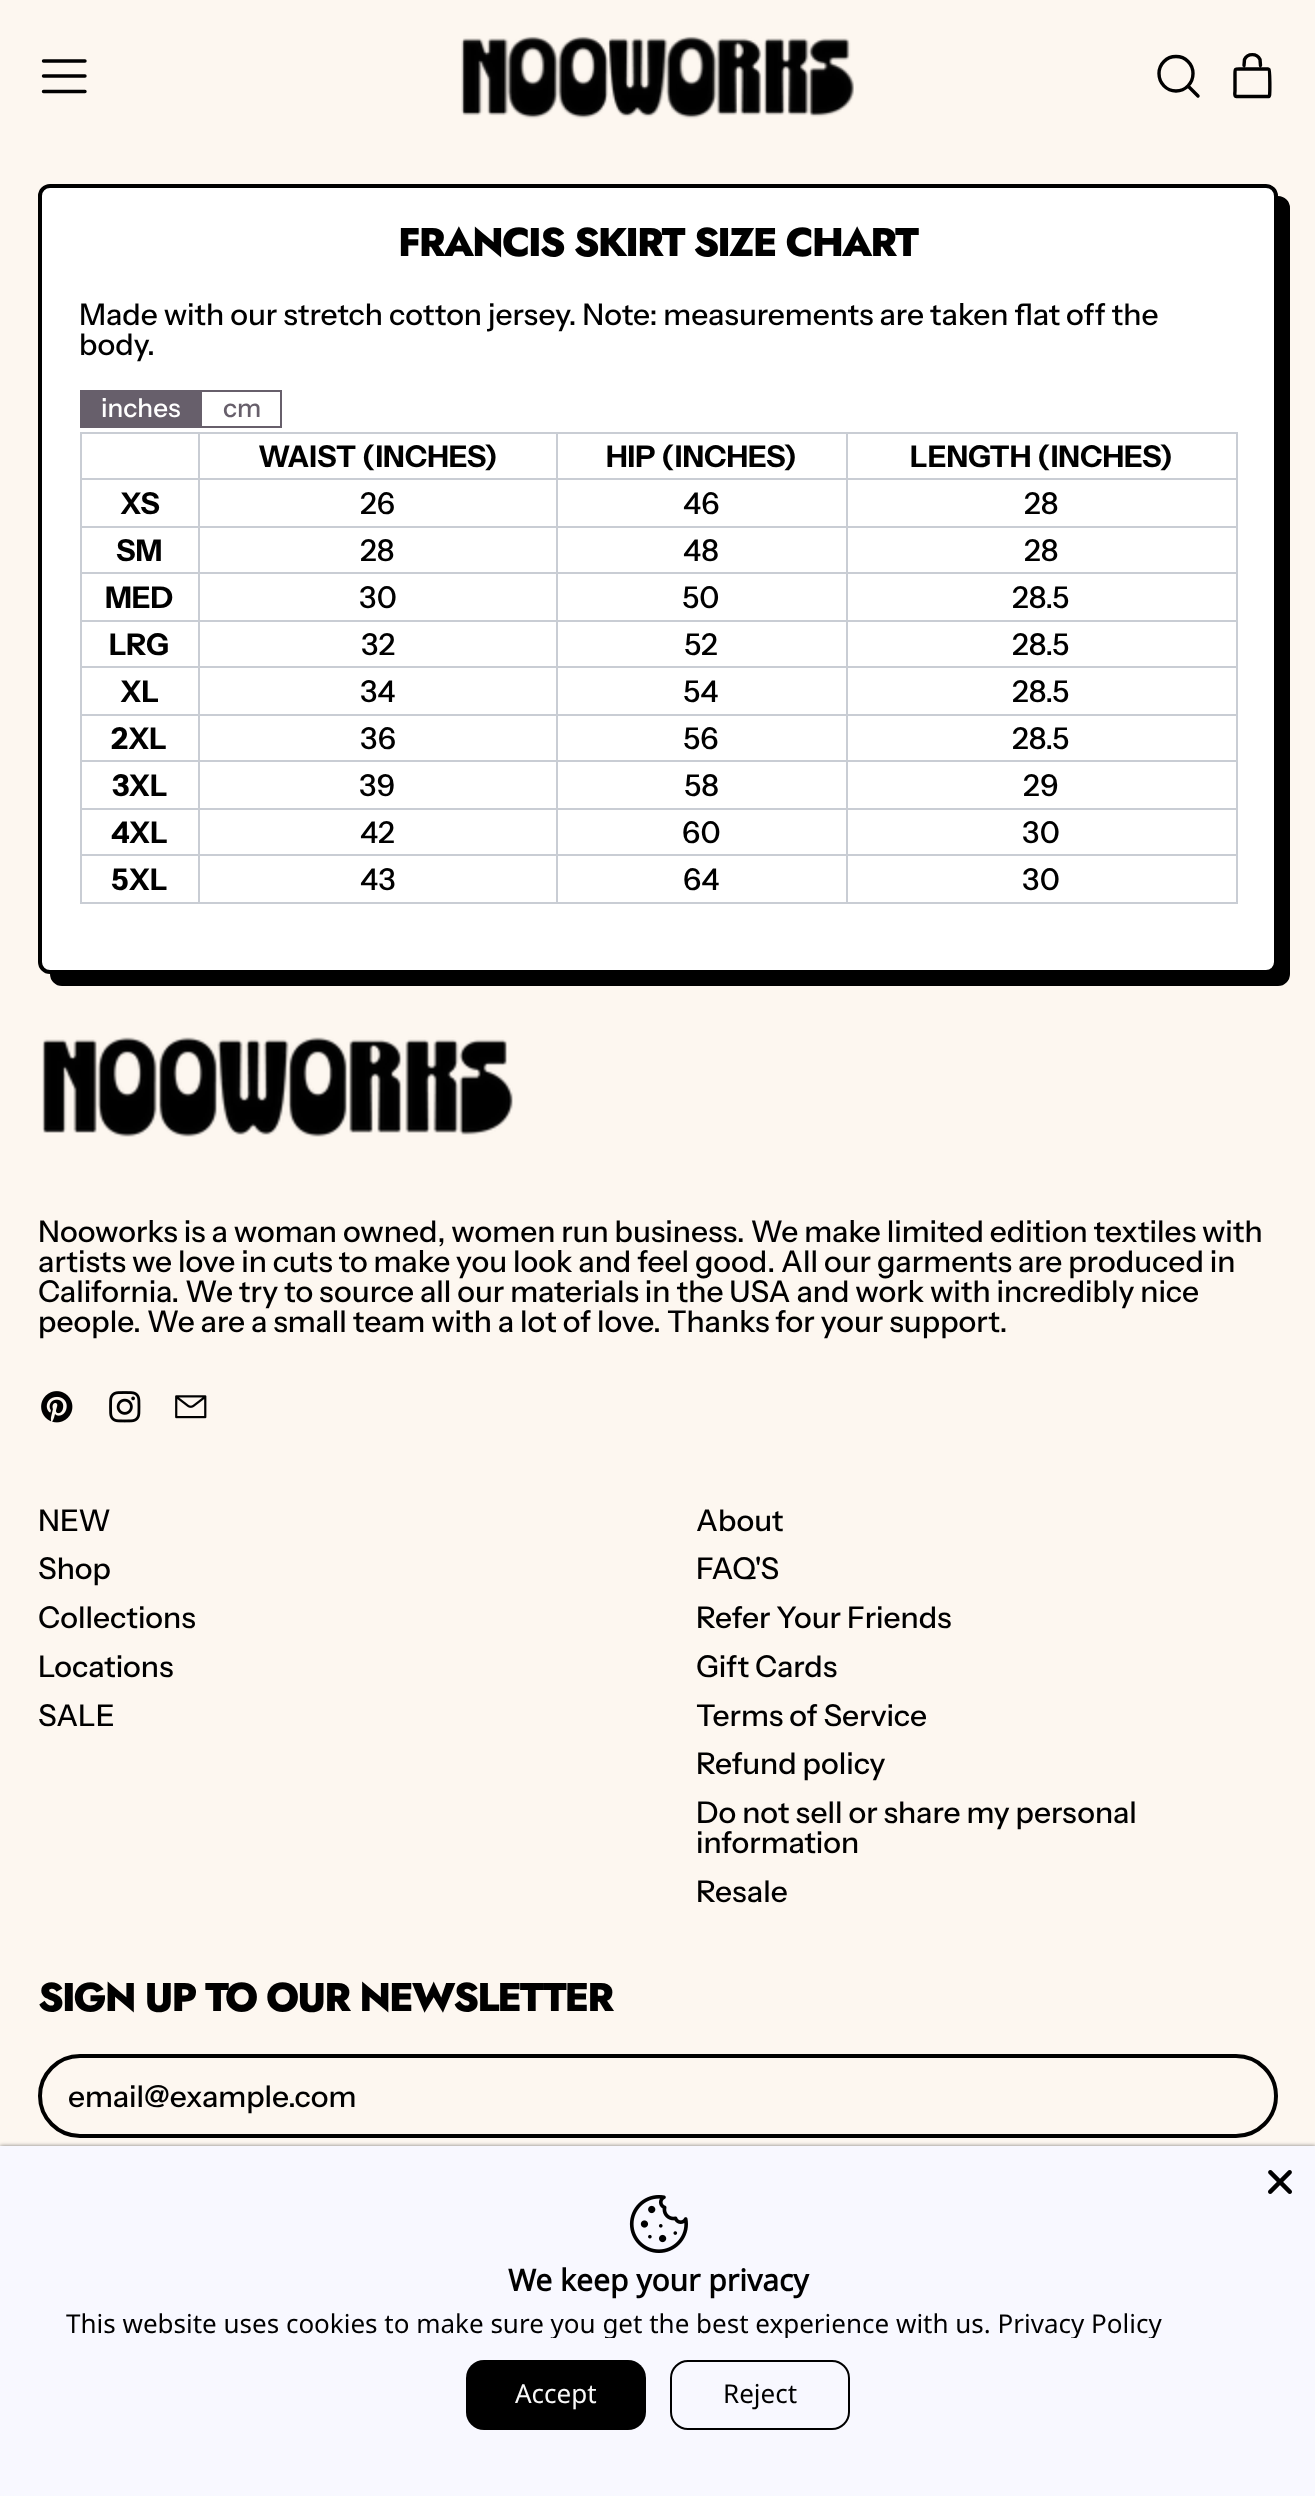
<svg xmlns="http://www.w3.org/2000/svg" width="1315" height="2496">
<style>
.a{font:800 40px Jost;letter-spacing:-2px;fill:#000}
.b{font:500 30px Instrument Sans;fill:#000}
.c{font:500 26px Instrument Sans;fill:#fff}
.d{font:500 26px Instrument Sans;fill:#675f6b}
.e{font:bold 30px Instrument Sans;fill:#000}
.f{font:bold 30px Noto Sans;fill:#000}
.g{font:26px Noto Sans;fill:#000}
.h{font:26px Noto Sans;fill:#f8f8f8}
</style>
<defs>
<clipPath id="clip1"><path d="M66 2312h1184v26H66z"/></clipPath>
</defs>
<rect width="100%" height="100%" fill="#fdf7f0"/>
<path fill="none" stroke="#000" stroke-width="3.4" stroke-linecap="round" stroke-linejoin="round" d="M85 91.5h-41.5m41.5-15.5h-41.5m41.5-15h-41.5"/>
<image href="1.png" x="461" y="36" width="393" height="83"/>
<path fill="none" stroke="#000" stroke-width="3.4" stroke-linecap="round" stroke-linejoin="round" d="M1159 73.5c0 9.5 7.5 17.5 17 17.5c9.5 0 17-8 17-17.5c0-9.5-7.5-17-17-17c-9.5 0-17 7.5-17 17zm39 22.5l-10-10"/>
<path fill="none" stroke="#000" stroke-width="3.4" stroke-linecap="round" stroke-linejoin="round" d="M1268 69h-26c-7.5 0-7-1-7 6v16c0 1-1 5.5 1.5 5.5h32.5l.5-1c.5-2.5 .5-25-.5-26zm-24-3.5l.5-6c3-6.5 12.5-6.5 15.5 0l.5 6"/>
<rect fill="#000" stroke="#000" stroke-width="4" x="52" y="198" width="1236" height="786" rx="10"/>
<rect fill="#fff" stroke="#000" stroke-width="4" x="40" y="186" width="1236" height="786" rx="10"/>
<path fill="none" stroke="#675f6b" stroke-width="2" d="M81 391h200v36H81z"/>
<path fill="#675f6b" d="M82 392h120v34H82z"/>
<path fill="#c9cdd4" d="M80 432h1158v2H80z"/>
<path fill="#c9cdd4" d="M1236 432h2v472H1236z"/>
<path fill="#c9cdd4" d="M80 902h1158v2H80z"/>
<path fill="#c9cdd4" d="M80 432h2v472H80z"/>
<path fill="#c9cdd4" d="M846 478h392v2H846z"/>
<path fill="#c9cdd4" d="M846 526h392v2H846z"/>
<path fill="#c9cdd4" d="M846 572h392v2H846z"/>
<path fill="#c9cdd4" d="M846 620h392v2H846z"/>
<path fill="#c9cdd4" d="M846 666h392v2H846z"/>
<path fill="#c9cdd4" d="M846 714h392v2H846z"/>
<path fill="#c9cdd4" d="M846 760h392v2H846z"/>
<path fill="#c9cdd4" d="M846 808h392v2H846z"/>
<path fill="#c9cdd4" d="M846 854h392v2H846z"/>
<path fill="#c9cdd4" d="M846 854h2v50H846z"/>
<path fill="#c9cdd4" d="M556 854h292v2H556z"/>
<path fill="#c9cdd4" d="M846 808h2v48H846z"/>
<path fill="#c9cdd4" d="M556 808h292v2H556z"/>
<path fill="#c9cdd4" d="M846 760h2v50H846z"/>
<path fill="#c9cdd4" d="M556 760h292v2H556z"/>
<path fill="#c9cdd4" d="M846 714h2v48H846z"/>
<path fill="#c9cdd4" d="M556 714h292v2H556z"/>
<path fill="#c9cdd4" d="M846 666h2v50H846z"/>
<path fill="#c9cdd4" d="M556 666h292v2H556z"/>
<path fill="#c9cdd4" d="M846 620h2v48H846z"/>
<path fill="#c9cdd4" d="M556 620h292v2H556z"/>
<path fill="#c9cdd4" d="M846 572h2v50H846z"/>
<path fill="#c9cdd4" d="M556 572h292v2H556z"/>
<path fill="#c9cdd4" d="M846 526h2v48H846z"/>
<path fill="#c9cdd4" d="M556 526h292v2H556z"/>
<path fill="#c9cdd4" d="M846 478h2v50H846z"/>
<path fill="#c9cdd4" d="M556 478h292v2H556z"/>
<path fill="#c9cdd4" d="M556 854h2v50H556z"/>
<path fill="#c9cdd4" d="M198 854h360v2H198z"/>
<path fill="#c9cdd4" d="M556 808h2v48H556z"/>
<path fill="#c9cdd4" d="M198 808h360v2H198z"/>
<path fill="#c9cdd4" d="M556 760h2v50H556z"/>
<path fill="#c9cdd4" d="M198 760h360v2H198z"/>
<path fill="#c9cdd4" d="M556 714h2v48H556z"/>
<path fill="#c9cdd4" d="M198 714h360v2H198z"/>
<path fill="#c9cdd4" d="M556 666h2v50H556z"/>
<path fill="#c9cdd4" d="M198 666h360v2H198z"/>
<path fill="#c9cdd4" d="M556 620h2v48H556z"/>
<path fill="#c9cdd4" d="M198 620h360v2H198z"/>
<path fill="#c9cdd4" d="M556 572h2v50H556z"/>
<path fill="#c9cdd4" d="M198 572h360v2H198z"/>
<path fill="#c9cdd4" d="M556 526h2v48H556z"/>
<path fill="#c9cdd4" d="M198 526h360v2H198z"/>
<path fill="#c9cdd4" d="M556 478h2v50H556z"/>
<path fill="#c9cdd4" d="M198 478h360v2H198z"/>
<path fill="#c9cdd4" d="M198 854h2v50H198z"/>
<path fill="#c9cdd4" d="M80 854h120v2H80z"/>
<path fill="#c9cdd4" d="M198 808h2v48H198z"/>
<path fill="#c9cdd4" d="M80 808h120v2H80z"/>
<path fill="#c9cdd4" d="M198 760h2v50H198z"/>
<path fill="#c9cdd4" d="M80 760h120v2H80z"/>
<path fill="#c9cdd4" d="M198 714h2v48H198z"/>
<path fill="#c9cdd4" d="M80 714h120v2H80z"/>
<path fill="#c9cdd4" d="M198 666h2v50H198z"/>
<path fill="#c9cdd4" d="M80 666h120v2H80z"/>
<path fill="#c9cdd4" d="M198 620h2v48H198z"/>
<path fill="#c9cdd4" d="M80 620h120v2H80z"/>
<path fill="#c9cdd4" d="M198 572h2v50H198z"/>
<path fill="#c9cdd4" d="M80 572h120v2H80z"/>
<path fill="#c9cdd4" d="M198 526h2v48H198z"/>
<path fill="#c9cdd4" d="M80 526h120v2H80z"/>
<path fill="#c9cdd4" d="M198 478h2v50H198z"/>
<path fill="#c9cdd4" d="M80 478h120v2H80z"/>
<path fill="#c9cdd4" d="M198 432h2v48H198z"/>
<path fill="#c9cdd4" d="M556 432h2v48H556z"/>
<path fill="#c9cdd4" d="M846 432h2v48H846z"/>
<image href="2.png" x="42" y="1037" width="471" height="100"/>
<image href="3.png" x="41" y="1391" width="32" height="32"/>
<image href="4.png" x="109" y="1391" width="32" height="32"/>
<image href="5.png" x="175" y="1395" width="32" height="24"/>
<rect fill="none" stroke="#000" stroke-width="4" x="40" y="2056" width="1236" height="80" rx="40"/>
<path fill="#00000080" filter="blur(2px)" d="M0 2146h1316v350H0z"/>
<path fill="#f8f8ff" d="M0 2146h1315v350H0z"/>
<image href="6.png" x="1268" y="2170" width="24" height="24"/>
<image href="7.png" x="629" y="2195" width="59" height="58"/>
<rect fill="#000" x="466" y="2360" width="180" height="70" rx="18"/>
<rect fill="none" stroke="#000" stroke-width="2" x="671" y="2361" width="178" height="68" rx="17"/>
<text class="a" x="398" y="256">FRANCIS SKIRT SIZE CHART</text>
<text class="b" x="79" y="325">Made with our stretch cotton jersey. Note: measurements are taken flat off the</text>
<text class="b" x="79" y="355">body.</text>
<text class="c" x="101" y="417">inches</text>
<text class="d" x="223" y="417">cm</text>
<text class="e" x="258" y="467">WAIST (INCHES)</text>
<text class="e" x="606" y="467">HIP (INCHES)</text>
<text class="e" x="910" y="467">LENGTH (INCHES)</text>
<text class="e" x="120" y="514">XS</text>
<text class="b" x="360" y="514">26</text>
<text class="b" x="683" y="514">46</text>
<text class="b" x="1024" y="514">28</text>
<text class="e" x="116" y="561">SM</text>
<text class="b" x="360" y="561">28</text>
<text class="b" x="683" y="561">48</text>
<text class="b" x="1024" y="561">28</text>
<text class="e" x="105" y="608">MED</text>
<text class="b" x="359" y="608">30</text>
<text class="b" x="682" y="608">50</text>
<text class="b" x="1012" y="608">28.5</text>
<text class="e" x="109" y="655">LRG</text>
<text class="b" x="361" y="655">32</text>
<text class="b" x="684" y="655">52</text>
<text class="b" x="1012" y="655">28.5</text>
<text class="e" x="120" y="702">XL</text>
<text class="b" x="360" y="702">34</text>
<text class="b" x="683" y="702">54</text>
<text class="b" x="1012" y="702">28.5</text>
<text class="e" x="111" y="749">2XL</text>
<text class="b" x="360" y="749">36</text>
<text class="b" x="683" y="749">56</text>
<text class="b" x="1012" y="749">28.5</text>
<text class="e" x="112" y="796">3XL</text>
<text class="b" x="359" y="796">39</text>
<text class="b" x="684" y="796">58</text>
<text class="b" x="1023" y="796">29</text>
<text class="e" x="111" y="843">4XL</text>
<text class="b" x="360" y="843">42</text>
<text class="b" x="682" y="843">60</text>
<text class="b" x="1022" y="843">30</text>
<text class="e" x="111" y="890">5XL</text>
<text class="b" x="360" y="890">43</text>
<text class="b" x="683" y="890">64</text>
<text class="b" x="1022" y="890">30</text>
<text class="b" x="38" y="1242">Nooworks is a woman owned, women run business. We make limited edition textiles with</text>
<text class="b" x="38" y="1272">artists we love in cuts to make you look and feel good. All our garments are produced in</text>
<text class="b" x="38" y="1302">California. We try to source all our materials in the USA and work with incredibly nice</text>
<text class="b" x="38" y="1332">people. We are a small team with a lot of love. Thanks for your support.</text>
<text class="b" x="38" y="1531">NEW</text>
<text class="b" x="38" y="1579">Shop</text>
<text class="b" x="38" y="1628">Collections</text>
<text class="b" x="38" y="1677">Locations</text>
<text class="b" x="38" y="1726">SALE</text>
<text class="b" x="696" y="1531">About</text>
<text class="b" x="696" y="1579">FAQ'S</text>
<text class="b" x="696" y="1628">Refer Your Friends</text>
<text class="b" x="696" y="1677">Gift Cards</text>
<text class="b" x="696" y="1726">Terms of Service</text>
<text class="b" x="696" y="1774">Refund policy</text>
<text class="b" x="696" y="1823">Do not sell or share my personal</text>
<text class="b" x="696" y="1853">information</text>
<text class="b" x="696" y="1902">Resale</text>
<text class="a" x="38" y="2011">SIGN UP TO OUR NEWSLETTER</text>
<text class="b" x="68" y="2107">email@example.com</text>
<text class="f" x="508" y="2291">We keep your privacy</text>
<g clip-path="url(#clip1)">
<text class="g" x="66" y="2333">This website uses cookies to make sure you get the best experience with us. Privacy Policy</text>
</g>
<text class="h" x="515" y="2403">Accept</text>
<text class="g" x="723" y="2403">Reject</text>
</svg>
